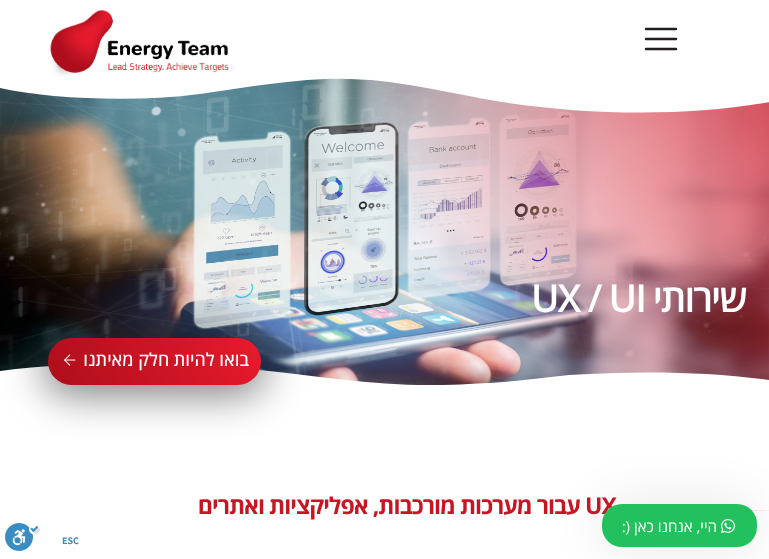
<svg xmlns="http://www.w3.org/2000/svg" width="769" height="559">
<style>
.a{font:600 38.5px Open Sans;letter-spacing:-2px;direction:rtl;fill:#fff}
.b{font:600 38.5px Open Sans;letter-spacing:-2px;fill:#fff}
.c{font:500 17.75px Open Sans;direction:rtl;fill:#fff}
.d{font:bold 23.1px Open Sans;letter-spacing:-1px;fill:#c91424}
.e{font:bold 23.1px Open Sans;letter-spacing:-1px;direction:rtl;fill:#c91424}
.f{font:15px Open Sans;direction:rtl;fill:#fff}
.g{font:bold 10px Assistant;fill:#3a8dc2}
</style>
<defs>
<linearGradient id="g1" gradientUnits="userSpaceOnUse" x1="739" y1="27" x2="30" y2="436"><stop offset="0" stop-color="#d41b2b" stop-opacity="0.75"/><stop offset="0.47" stop-color="#d41b2b" stop-opacity="0"/></linearGradient>
<clipPath id="clip1"><path d="M0 363h769v23H0z"/></clipPath>
<linearGradient id="g2" gradientUnits="userSpaceOnUse" x1="64" y1="413" x2="245" y2="310"><stop offset="0" stop-color="#ad0e1c"/><stop offset="1" stop-color="#e91a2c"/></linearGradient>
</defs>
<rect width="100%" height="100%" fill="#fff"/>
<image href="1.png" x="644" y="27" width="34" height="24"/>
<image href="2.png" x="50" y="10" width="179" height="67"/>
<image href="3.png" x="0" y="78" width="769" height="307"/>
<path fill="url(#g1)" d="M337 78h432v304H337z"/>
<path fill="#fff" d="M325 79c60-3 118 13 177 23c87 13 181 15 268 0v-25h-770v11c18 4 36 6 54 8c48 4 98 4 146-2l54-8c24-3 47-6 71-7z"/>
<g clip-path="url(#clip1)">
<path fill="#fff" d="M444 385c-66 2-131-10-196-16c-83-7-167-8-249 2v16h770v-7c-65-9-134-9-200-5l-54 6c-24 2-47 3-71 4z"/>
</g>
<rect fill="#00000080" filter="blur(20px)" x="43" y="338" width="223" height="57" rx="28.5"/>
<rect fill="url(#g2)" x="48" y="338" width="213" height="47" rx="23.5"/>
<image href="4.png" x="64" y="354" width="12" height="12"/>
<image href="5.png" x="751" y="510" width="18" height="1"/>
<rect fill="#0000001a" filter="blur(25px)" x="602" y="504" width="155" height="43" rx="20"/>
<image href="7.png" x="5" y="523" width="35" height="28"/>
<text class="a" x="746" y="312">שירותי</text>
<text class="b" x="531" y="312">UX / UI</text>
<text class="c" x="249" y="366">בואו להיות חלק מאיתנו</text>
<text class="d" x="585" y="514">UX</text>
<text class="e" x="580" y="514">עבור מערכות מורכבות, אפליקציות ואתרים</text>
<rect fill="#22c15e" x="602" y="504" width="155" height="43" rx="20"/>
<image href="6.png" x="721" y="519" width="14" height="14"/>
<text class="f" x="717" y="532">היי, אנחנו כאן (:</text>
<text class="g" x="62" y="544">ESC</text>
</svg>
